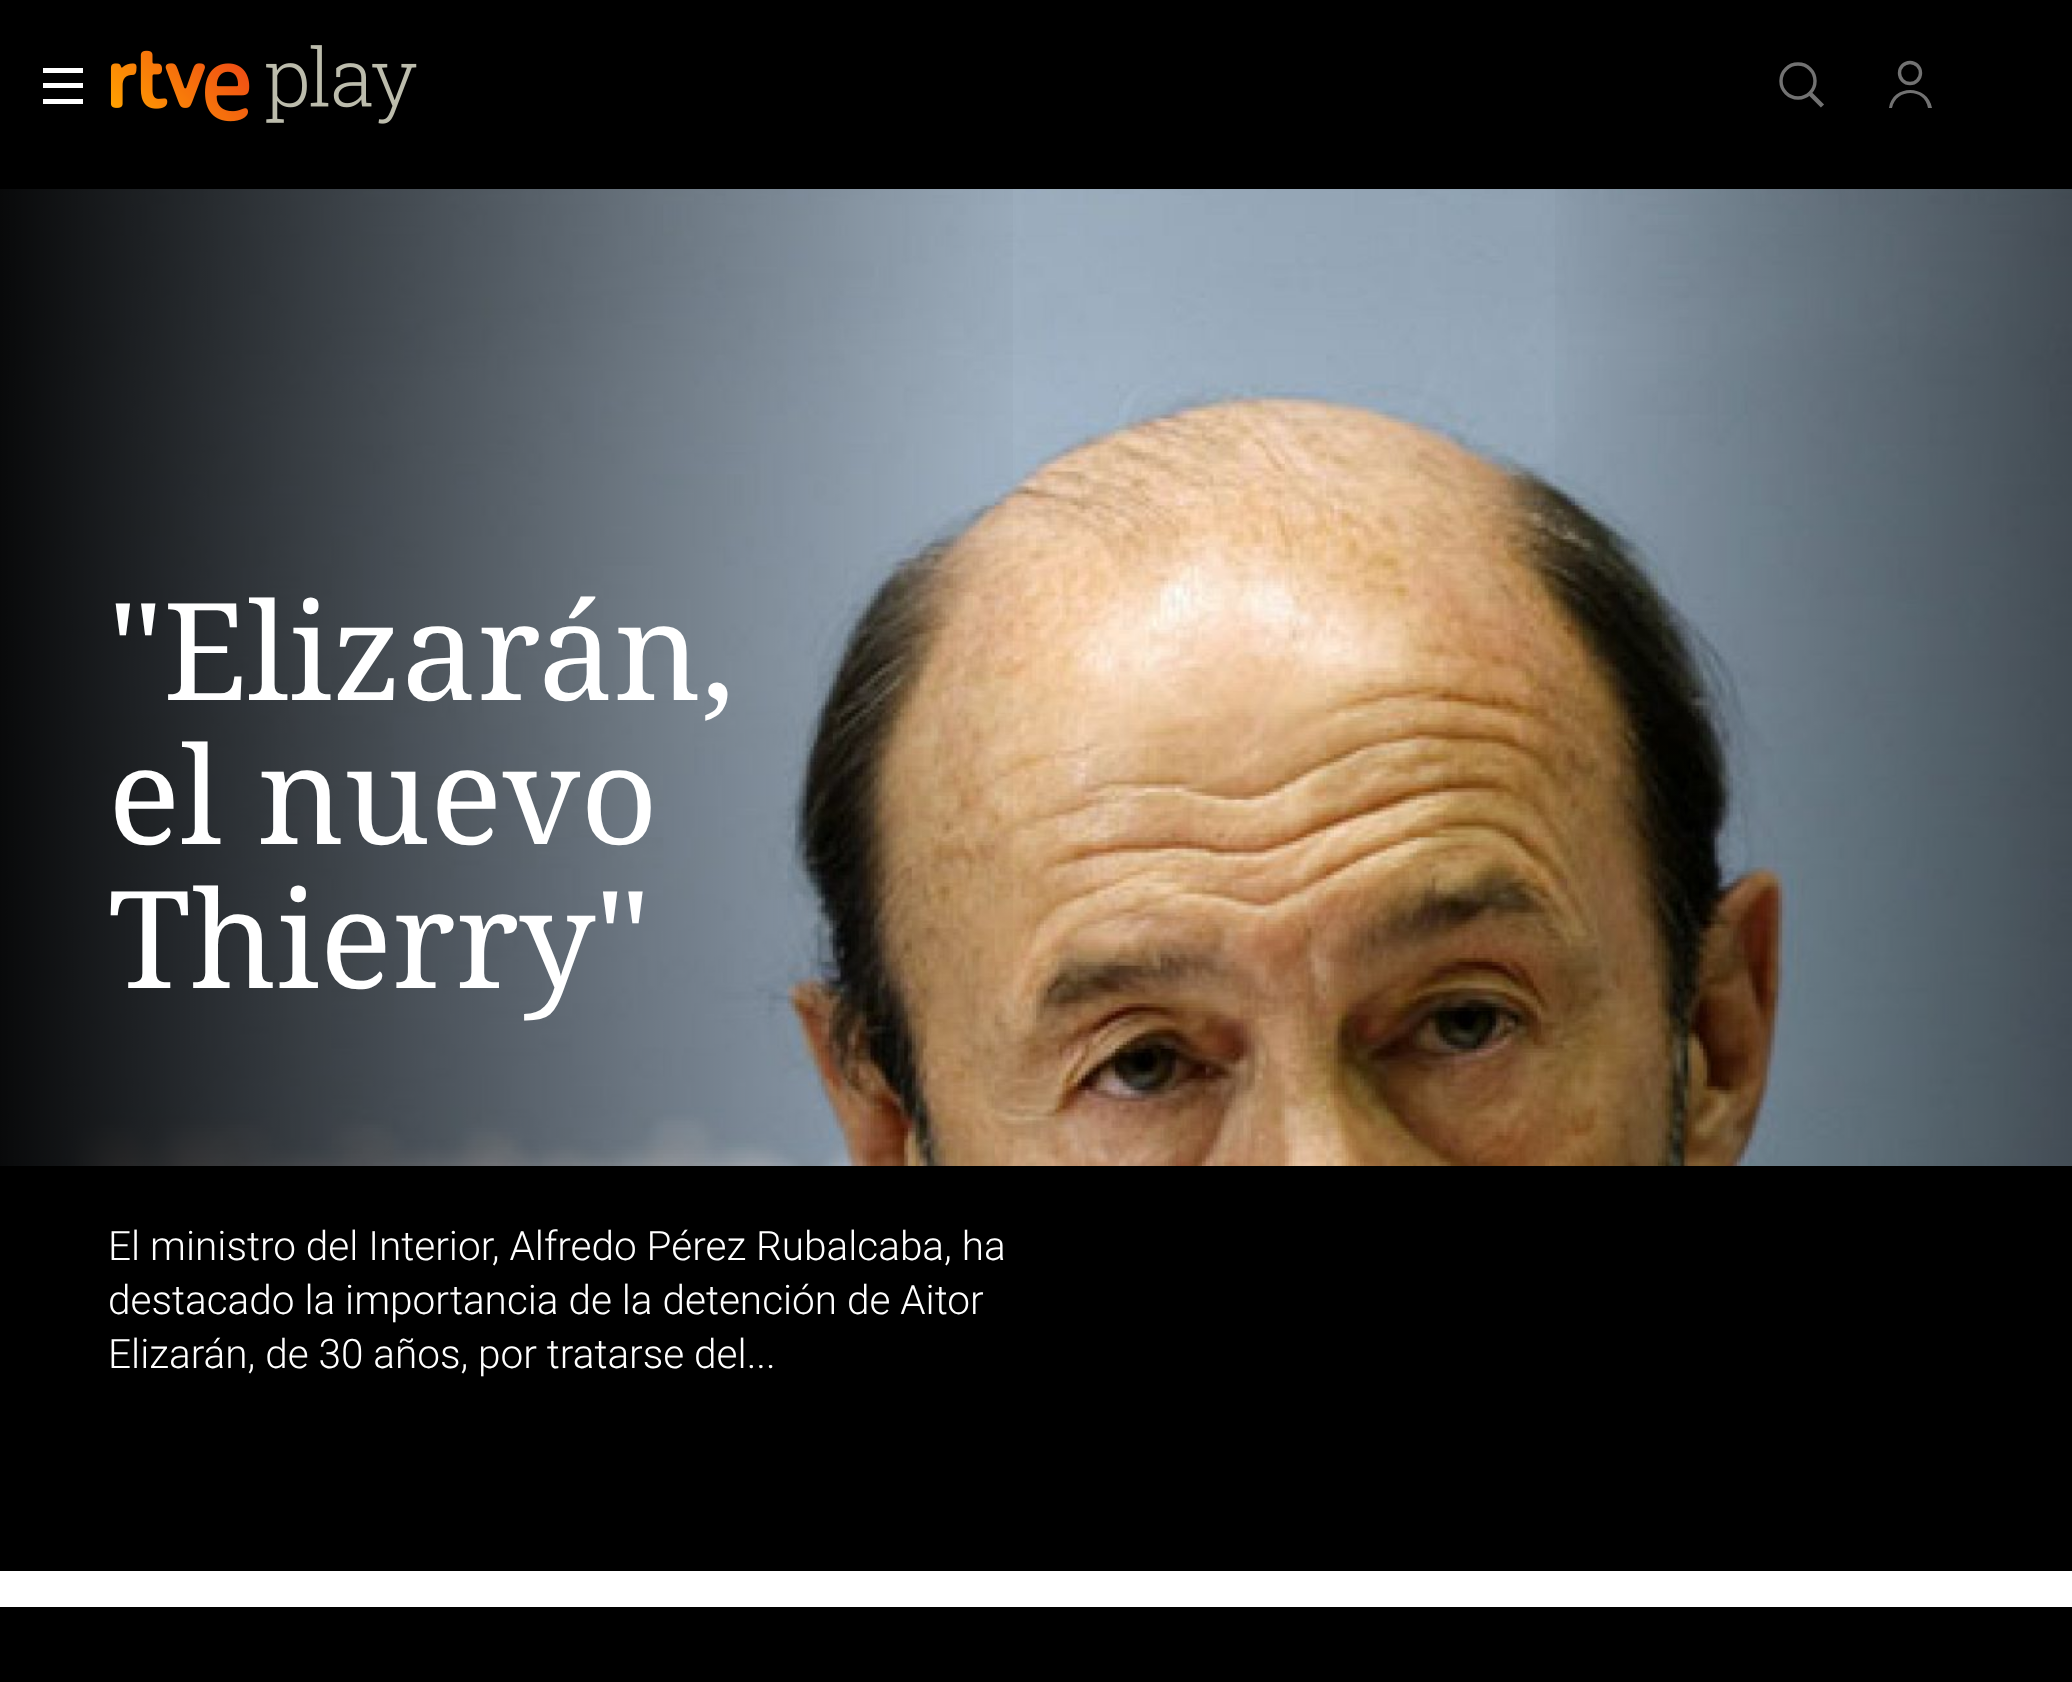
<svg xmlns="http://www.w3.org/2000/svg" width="2072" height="1682">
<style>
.a{font:135px Noto Serif;fill:#fff}
.b{font:300 40.5px Roboto;fill:#fff}
</style>
<defs>
<linearGradient id="g1" gradientUnits="userSpaceOnUse" x1="0" y1="839" x2="1037" y2="839"><stop offset="0" stop-color="#000" stop-opacity="0.95"/><stop offset="1" stop-color="#000" stop-opacity="0"/></linearGradient>
<linearGradient id="g2" gradientUnits="userSpaceOnUse" x1="2072" y1="839" x2="1532" y2="839"><stop offset="0" stop-color="#000" stop-opacity="0.5"/><stop offset="1" stop-color="#000" stop-opacity="0"/></linearGradient>
</defs>
<rect width="100%" height="100%" fill="#000"/>
<path fill="#fff" d="M43 68h40v5H43z"/>
<path fill="#fff" d="M43 83h40v5H43z"/>
<path fill="#fff" d="M43 99h40v5H43z"/>
<image href="1.png" x="110" y="50" width="140" height="72"/>
<image href="2.png" x="266" y="45" width="151" height="79"/>
<circle fill="none" stroke="#727272" stroke-width="3.4" cx="1798" cy="81" r="17"/>
<path fill="none" stroke="#727272" stroke-width="4.5" d="M1809.5 93l13 13"/>
<path fill="#727272" d="M1892 108c4-20 33-20 36 0h4c-4-24-40-24-43 0z"/>
<circle fill="none" stroke="#727272" stroke-width="3.4" cx="1910" cy="73" r="10.5"/>
<image href="3.png" x="0" y="189" width="2072" height="977"/>
<path fill="url(#g1)" d="M0 189h1013v977H0z"/>
<path fill="url(#g2)" d="M1555 189h517v977H1555z"/>
<path fill="#fff" d="M0 1571h2072v36H0z"/>
<text class="a" x="108" y="700">"Elizarán,</text>
<text class="a" x="108" y="844">el nuevo</text>
<text class="a" x="108" y="988">Thierry"</text>
<text class="b" x="108" y="1260">El ministro del Interior, Alfredo Pérez Rubalcaba, ha</text>
<text class="b" x="108" y="1314">destacado la importancia de la detención de Aitor</text>
<text class="b" x="108" y="1368">Elizarán, de 30 años, por tratarse del...</text>
</svg>
